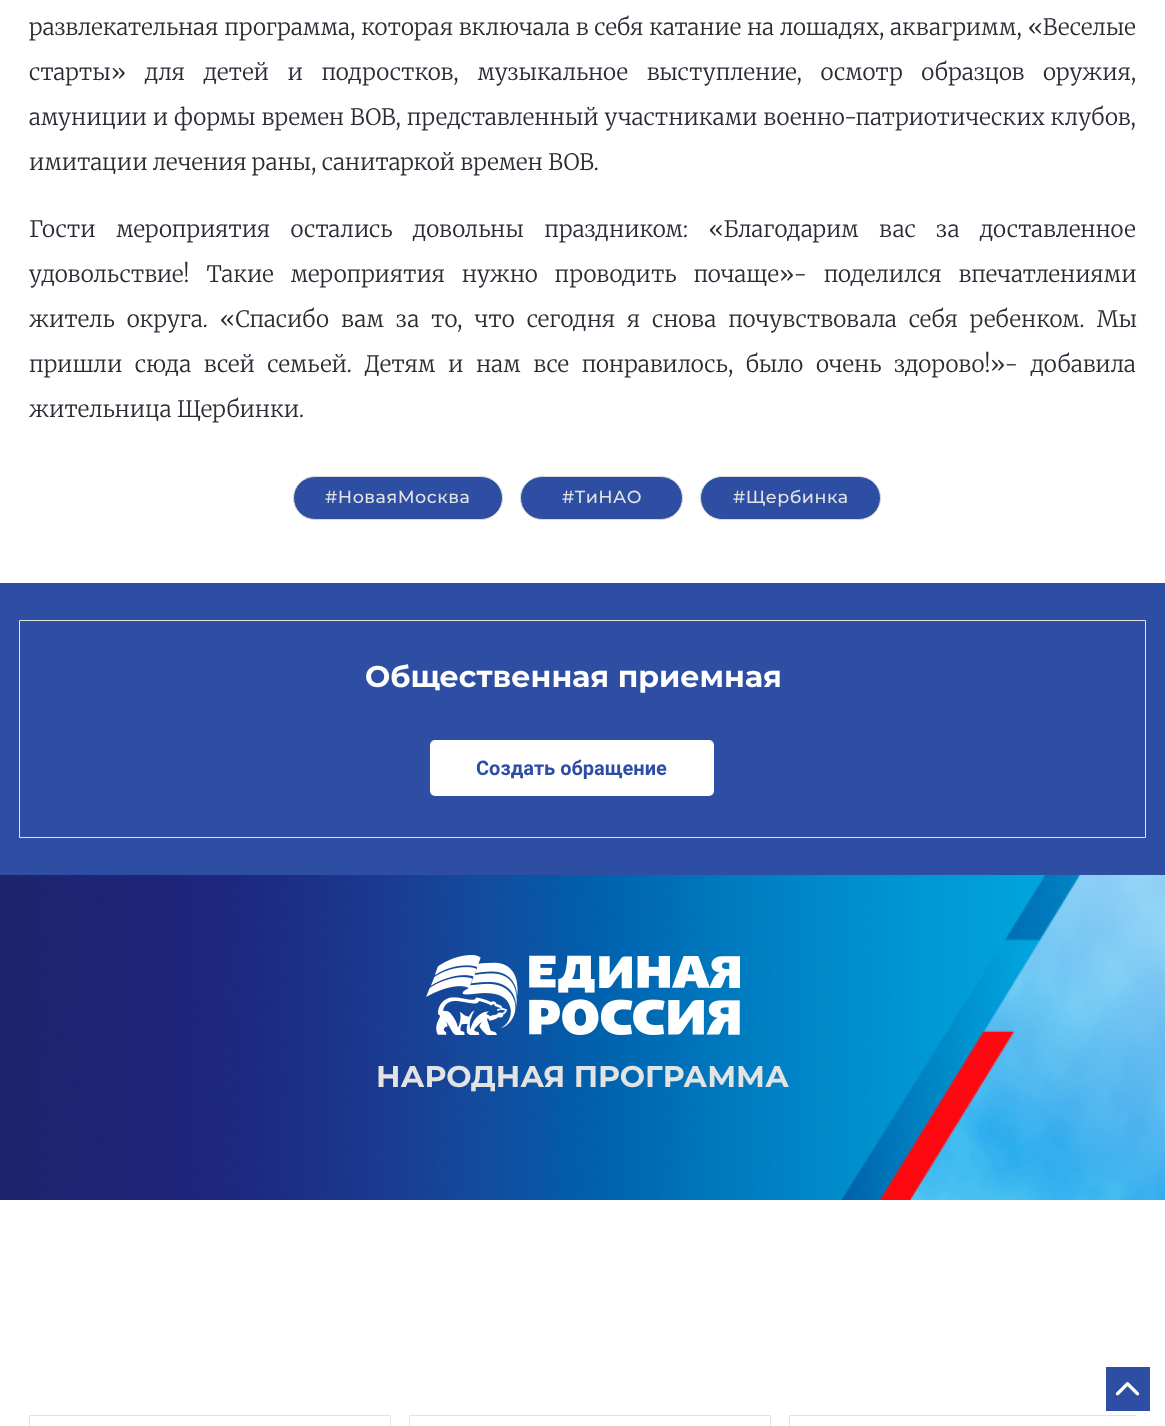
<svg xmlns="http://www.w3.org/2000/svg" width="1165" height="1426">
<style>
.a{font:300 22.5px Merriweather;fill:#2a2c34}
.b{font:500 17.5px Montserrat;letter-spacing:0.5px;fill:#e3e3e3}
.c{font:bold 30px Montserrat;fill:#fff}
.d{font:bold 20px Roboto;fill:#2e4ea4}
.e{font:bold 30px Montserrat;fill:#e3e3e3}
</style>
<defs>
<clipPath id="clip1"><path d="M29 1415h1107v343H29z"/></clipPath>
</defs>
<rect width="100%" height="100%" fill="#fff"/>
<rect fill="#2e4ea4" stroke="#dadada" x="293.5" y="476.5" width="209" height="43" rx="21.5"/>
<rect fill="#2e4ea4" stroke="#dadada" x="520.5" y="476.5" width="162" height="43" rx="21.5"/>
<rect fill="#2e4ea4" stroke="#dadada" x="700.5" y="476.5" width="180" height="43" rx="21.5"/>
<path fill="#2e4ea4" d="M0 583h1165v292H0z"/>
<path fill="none" stroke="#e3e3e3" d="M19.5 620.5h1126v217H19.5z"/>
<rect fill="#fff" x="430" y="740" width="284" height="56" rx="5"/>
<image href="1.png" x="0" y="875" width="1165" height="325"/>
<image href="2.png" x="426" y="955" width="314" height="80"/>
<path fill="none" stroke="#e3e3e3" d="M29.5 1415.5h361v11H29.5z"/>
<path fill="none" stroke="#e3e3e3" d="M409.5 1415.5h361v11H409.5z"/>
<g clip-path="url(#clip1)">
<path fill="none" stroke="#e3e3e3" d="M789.5 1415.5h361v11H789.5z"/>
</g>
<path fill="#2e4ea4" d="M1106 1367h44v44H1106z"/>
<image href="3.png" x="1115" y="1382" width="25" height="14"/>
<text class="a" x="29" y="35" word-spacing="0.5">развлекательная программа, которая включала в себя катание на лошадях, аквагримм, «Веселые</text>
<text class="a" x="29" y="80" word-spacing="13.25">старты» для детей и подростков, музыкальное выступление, осмотр образцов оружия,</text>
<text class="a" x="29" y="125" word-spacing="0.5">амуниции и формы времен ВОВ, представленный участниками военно-патриотических клубов,</text>
<text class="a" x="29" y="170">имитации лечения раны, санитаркой времен ВОВ.</text>
<text class="a" x="29" y="237" word-spacing="15">Гости мероприятия остались довольны праздником: «Благодарим вас за доставленное</text>
<text class="a" x="29" y="282" word-spacing="11.5">удовольствие! Такие мероприятия нужно проводить почаще»- поделился впечатлениями</text>
<text class="a" x="29" y="327" word-spacing="6.6">житель округа. «Спасибо вам за то, что сегодня я снова почувствовала себя ребенком. Мы</text>
<text class="a" x="29" y="372" word-spacing="7.25">пришли сюда всей семьей. Детям и нам все понравилось, было очень здорово!»- добавила</text>
<text class="a" x="29" y="417">жительница Щербинки.</text>
<text class="b" x="325" y="503">#НоваяМосква</text>
<text class="b" x="562" y="503">#ТиНАО</text>
<text class="b" x="733" y="503">#Щербинка</text>
<text class="c" x="365" y="687">Общественная приемная</text>
<text class="d" x="476" y="775">Создать обращение</text>
<text class="e" x="376" y="1087">НАРОДНАЯ ПРОГРАММА</text>
</svg>
